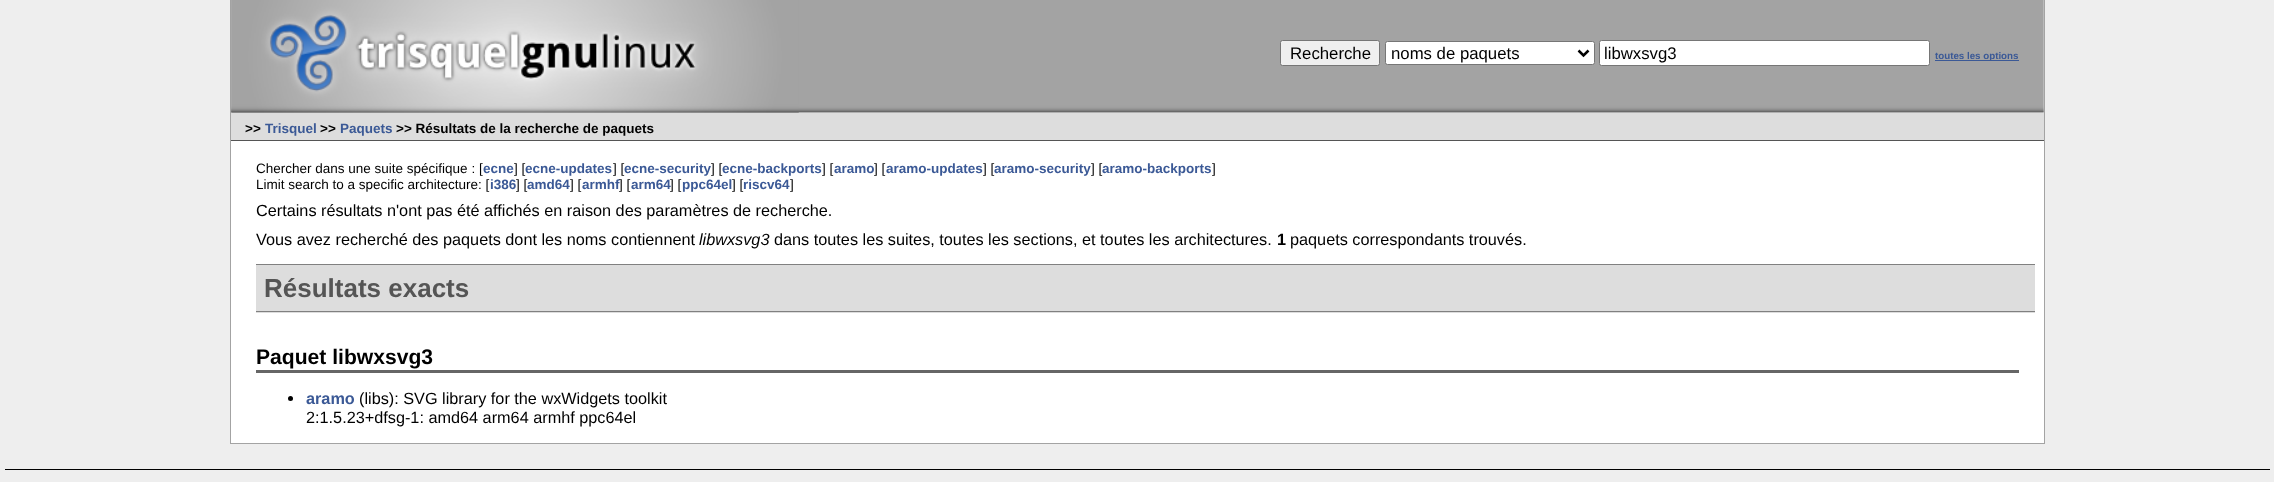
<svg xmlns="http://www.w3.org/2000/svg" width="2274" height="482">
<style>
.a{font:16.75px Liberation Sans;fill:#000}
.b{font:bold 9.75px Liberation Sans;fill:#3b5996}
.c{font:bold 13.5px Liberation Sans;fill:#000}
.d{font:bold 13.5px Liberation Sans;fill:#3b5996}
.e{font:13.5px Liberation Sans;fill:#000}
.f{font:16.25px Liberation Sans;fill:#000}
.g{font:italic 16.25px Liberation Sans;fill:#000}
.h{font:bold 16.25px Liberation Sans;fill:#000}
.i{font:bold 26px Liberation Sans;fill:#555}
.j{font:bold 21.1px Liberation Sans;fill:#000}
.k{font:bold 16.25px Liberation Sans;fill:#3b5996}
</style>
<rect width="100%" height="100%" fill="#eee"/>
<path fill="#fff" d="M231 0h1813v443H231z"/>
<path fill="#a3a3a3" d="M2044 0h1v444H2044z"/>
<path fill="#a3a3a3" d="M230 443h1815v1H230z"/>
<path fill="#a3a3a3" d="M230 0h1v444H230z"/>
<image href="1.png" x="231" y="0" width="1813" height="113"/>
<image href="2.png" x="231" y="0" width="568" height="113"/>
<rect fill="#efefef" stroke="#767676" x="1280.5" y="40.5" width="99" height="25" rx="2"/>
<rect fill="#fff" stroke="#767676" x="1385.5" y="41.5" width="209" height="23" rx="2"/>
<path fill="none" stroke="#000" stroke-width="2.5" d="M1578.5 50.5l5 5l5-5"/>
<rect fill="#fff" stroke="#767676" x="1599.5" y="40.5" width="330" height="25" rx="2"/>
<path fill="#3b5996" d="M1935 60h84v1H1935z"/>
<path fill="#ddd" d="M231 113h1813v27H231z"/>
<path fill="#555" d="M231 140h1813v1H231z"/>
<path fill="#ddd" d="M256 265h1779v48H256z"/>
<path fill="#808080" d="M256 264h1779v1H256z"/>
<path fill="#808080" d="M256 311h1779v1H256z"/>
<path fill="#666" d="M256 370h1763v3H256z"/>
<circle fill="#000" cx="290.5" cy="398.5" r="2.5"/>
<path fill="#000" d="M5 469h2265v1H5z"/>
<text class="a" x="1290" y="59">Recherche</text>
<text class="a" x="1391" y="59">noms de paquets</text>
<text class="a" x="1604" y="59">libwxsvg3</text>
<text class="b" x="1935" y="59">toutes les options</text>
<text class="c" x="245" y="133">&gt;&gt;</text>
<text class="d" x="265" y="133">Trisquel</text>
<text class="c" x="320" y="133">&gt;&gt;</text>
<text class="d" x="340" y="133">Paquets</text>
<text class="c" x="396" y="133">&gt;&gt; Résultats de la recherche de paquets</text>
<text class="e" x="256" y="173">Chercher dans une suite spécifique : [</text>
<text class="d" x="483" y="173">ecne</text>
<text class="e" x="514" y="173">] [</text>
<text class="d" x="525" y="173">ecne-updates</text>
<text class="e" x="613" y="173">] [</text>
<text class="d" x="624" y="173">ecne-security</text>
<text class="e" x="711" y="173">] [</text>
<text class="d" x="722" y="173">ecne-backports</text>
<text class="e" x="822" y="173">] [</text>
<text class="d" x="834" y="173">aramo</text>
<text class="e" x="874" y="173">] [</text>
<text class="d" x="886" y="173">aramo-updates</text>
<text class="e" x="983" y="173">] [</text>
<text class="d" x="994" y="173">aramo-security</text>
<text class="e" x="1091" y="173">] [</text>
<text class="d" x="1102" y="173">aramo-backports</text>
<text class="e" x="1212" y="173">]</text>
<text class="e" x="256" y="189">Limit search to a specific architecture: [</text>
<text class="d" x="490" y="189">i386</text>
<text class="e" x="516" y="189">] [</text>
<text class="d" x="527" y="189">amd64</text>
<text class="e" x="570" y="189">] [</text>
<text class="d" x="582" y="189">armhf</text>
<text class="e" x="619" y="189">] [</text>
<text class="d" x="631" y="189">arm64</text>
<text class="e" x="670" y="189">] [</text>
<text class="d" x="682" y="189">ppc64el</text>
<text class="e" x="732" y="189">] [</text>
<text class="d" x="743" y="189">riscv64</text>
<text class="e" x="790" y="189">]</text>
<text class="f" x="256" y="216">Certains résultats n'ont pas été affichés en raison des paramètres de recherche.</text>
<text class="f" x="256" y="245">Vous avez recherché des paquets dont les noms contiennent</text>
<text class="g" x="699" y="245">libwxsvg3</text>
<text class="f" x="774" y="245">dans toutes les suites, toutes les sections, et toutes les architectures.</text>
<text class="h" x="1277" y="245">1</text>
<text class="f" x="1290" y="245">paquets correspondants trouvés.</text>
<text class="i" x="264" y="297">Résultats exacts</text>
<text class="j" x="256" y="364">Paquet libwxsvg3</text>
<text class="k" x="306" y="404">aramo</text>
<text class="f" x="359" y="404">(libs): SVG library for the wxWidgets toolkit</text>
<text class="f" x="306" y="423">2:1.5.23+dfsg-1: amd64 arm64 armhf ppc64el</text>
</svg>
